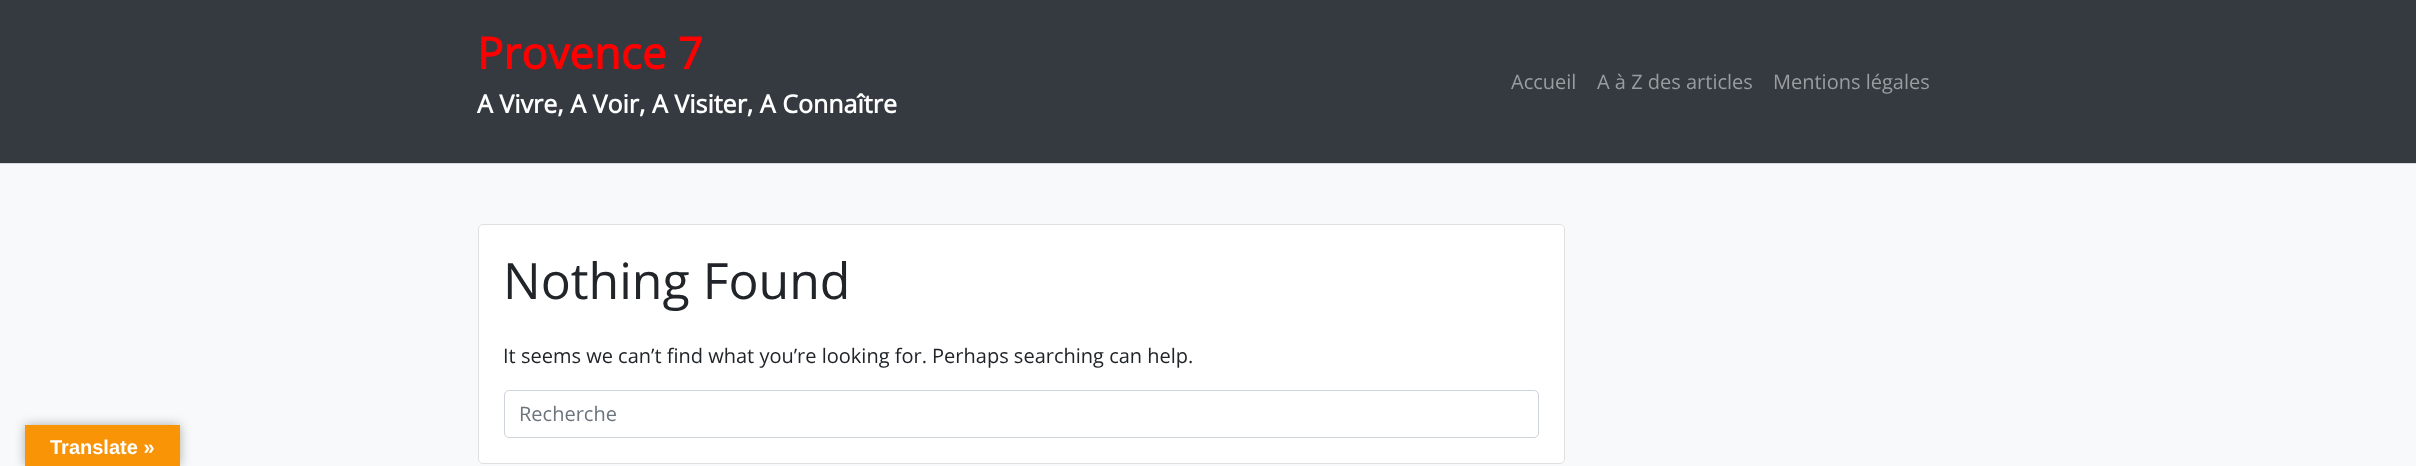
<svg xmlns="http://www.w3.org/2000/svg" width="2416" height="466">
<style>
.a{font:bold 43.75px Open Sans;fill:#f00}
.b{font:bold 25px Open Sans;fill:#fff}
.c{font:20px Open Sans;fill:#9a9da0}
.d{font:50px Open Sans;fill:#212529}
.e{font:20px Open Sans;fill:#212529}
.f{font:20px Open Sans;fill:#6c757d}
.g{font:bold 20px Liberation Sans;fill:#fff}
</style>
<rect width="100%" height="100%" fill="#f8f9fa"/>
<path fill="#d9dadb" d="M0 163h2416v1H0z"/>
<path fill="#343a40" d="M0 0h2416v163H0z"/>
<rect fill="#fff" x="478" y="224" width="1087" height="240" rx="5"/>
<rect fill="none" stroke="#0000001f" x="478.5" y="224.5" width="1086" height="239" rx="4.5"/>
<rect fill="none" stroke="#ced4da" x="504.5" y="390.5" width="1034" height="47" rx="4.5"/>
<path fill="#0000004d" filter="blur(5.5px)" d="M25 425h155v41H25z"/>
<path fill="#f89406" d="M25 425h155v41H25z"/>
<text class="a" x="477" y="69">Provence 7</text>
<text class="b" x="477" y="113">A Vivre, A Voir, A Visiter, A Connaître</text>
<text class="c" x="1511" y="89">Accueil</text>
<text class="c" x="1597" y="89">A à Z des articles</text>
<text class="c" x="1773" y="89">Mentions légales</text>
<text class="d" x="503" y="299">Nothing Found</text>
<text class="e" x="503" y="363">It seems we can’t find what you’re looking for. Perhaps searching can help.</text>
<text class="f" x="519" y="421">Recherche</text>
<text class="g" x="50" y="454">Translate »</text>
</svg>
